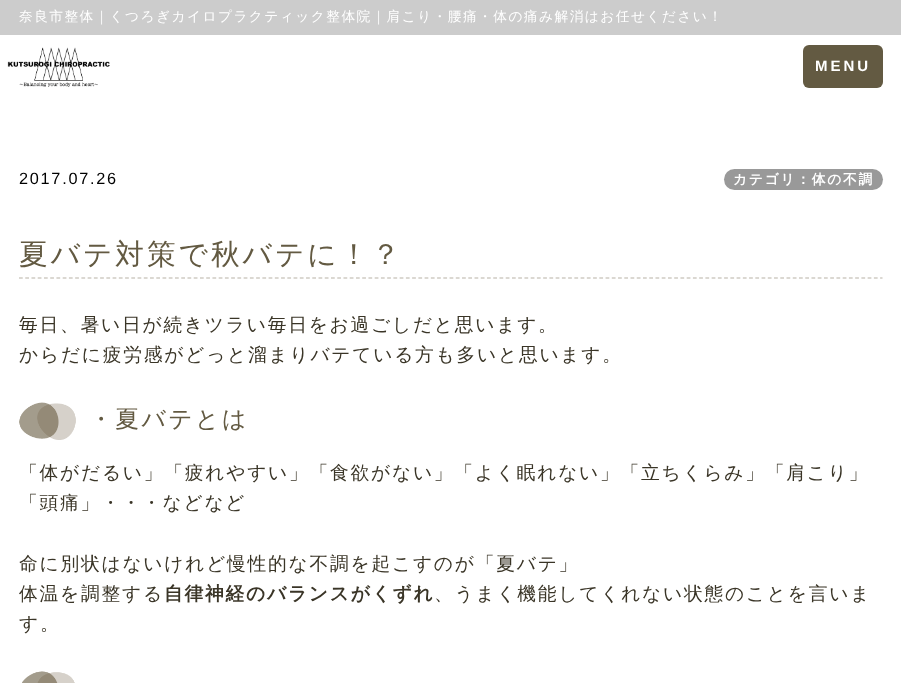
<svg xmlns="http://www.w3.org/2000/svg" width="901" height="683">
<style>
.a{font:500 13.75px WenQuanYi Zen Hei;letter-spacing:1.4px;fill:#fff}
.b{font:bold 15px Liberation Sans;letter-spacing:3px;fill:#fff}
.c{font:16.25px Liberation Sans;letter-spacing:1.75px;fill:#000}
.d{font:bold 13.75px WenQuanYi Zen Hei;letter-spacing:1.75px;fill:#fff}
.e{font:500 28.75px WenQuanYi Zen Hei;letter-spacing:2.9px;fill:#635a42}
.f{font:500 18.75px WenQuanYi Zen Hei;letter-spacing:1.75px;fill:#3a3527}
.g{font:500 23.75px WenQuanYi Zen Hei;letter-spacing:2.5px;fill:#635a42}
.h{font:bold 18.75px WenQuanYi Zen Hei;letter-spacing:1.75px;fill:#3a3527}
</style>
<rect width="100%" height="100%" fill="#fff"/>
<path fill="#ccc" d="M0 0h901v35H0z"/>
<image href="1.png" x="7" y="47" width="103" height="40"/>
<rect fill="#635a42" x="803" y="45" width="80" height="43" rx="6"/>
<rect fill="#999" x="724" y="169" width="159" height="21" rx="10.5"/>
<path fill="none" stroke="#b7b1a5" stroke-width="1.2" stroke-dasharray="3.75 2.49" d="M19 278h863.5"/>
<image href="2.png" x="19" y="402" width="57" height="38"/>
<image href="3.png" x="22" y="671" width="53" height="12"/>
<text class="a" x="19" y="21">奈良市整体｜くつろぎカイロプラクティック整体院｜肩こり・腰痛・体の痛み解消はお任せください！</text>
<text class="b" x="815" y="71">MENU</text>
<text class="c" x="19" y="184">2017.07.26</text>
<text class="d" x="733" y="184">カテゴリ：体の不調</text>
<text class="e" x="19" y="264">夏バテ対策で秋バテに！？</text>
<text class="f" x="19" y="331">毎日、暑い日が続きツラい毎日をお過ごしだと思います。</text>
<text class="f" x="19" y="361">からだに疲労感がどっと溜まりバテている方も多いと思います。</text>
<text class="g" x="89" y="427">・夏バテとは</text>
<text class="f" x="19" y="479">「体がだるい」「疲れやすい」「食欲がない」「よく眠れない」「立ちくらみ」「肩こり」</text>
<text class="f" x="19" y="509">「頭痛」・・・などなど</text>
<text class="f" x="19" y="570">命に別状はないけれど慢性的な不調を起こすのが「夏バテ」</text>
<text class="f" x="19" y="600">体温を調整する</text>
<text class="h" x="164" y="600">自律神経のバランスがくずれ</text>
<text class="f" x="434" y="600">、うまく機能してくれない状態のことを言いま</text>
<text class="f" x="19" y="630">す。</text>
</svg>
